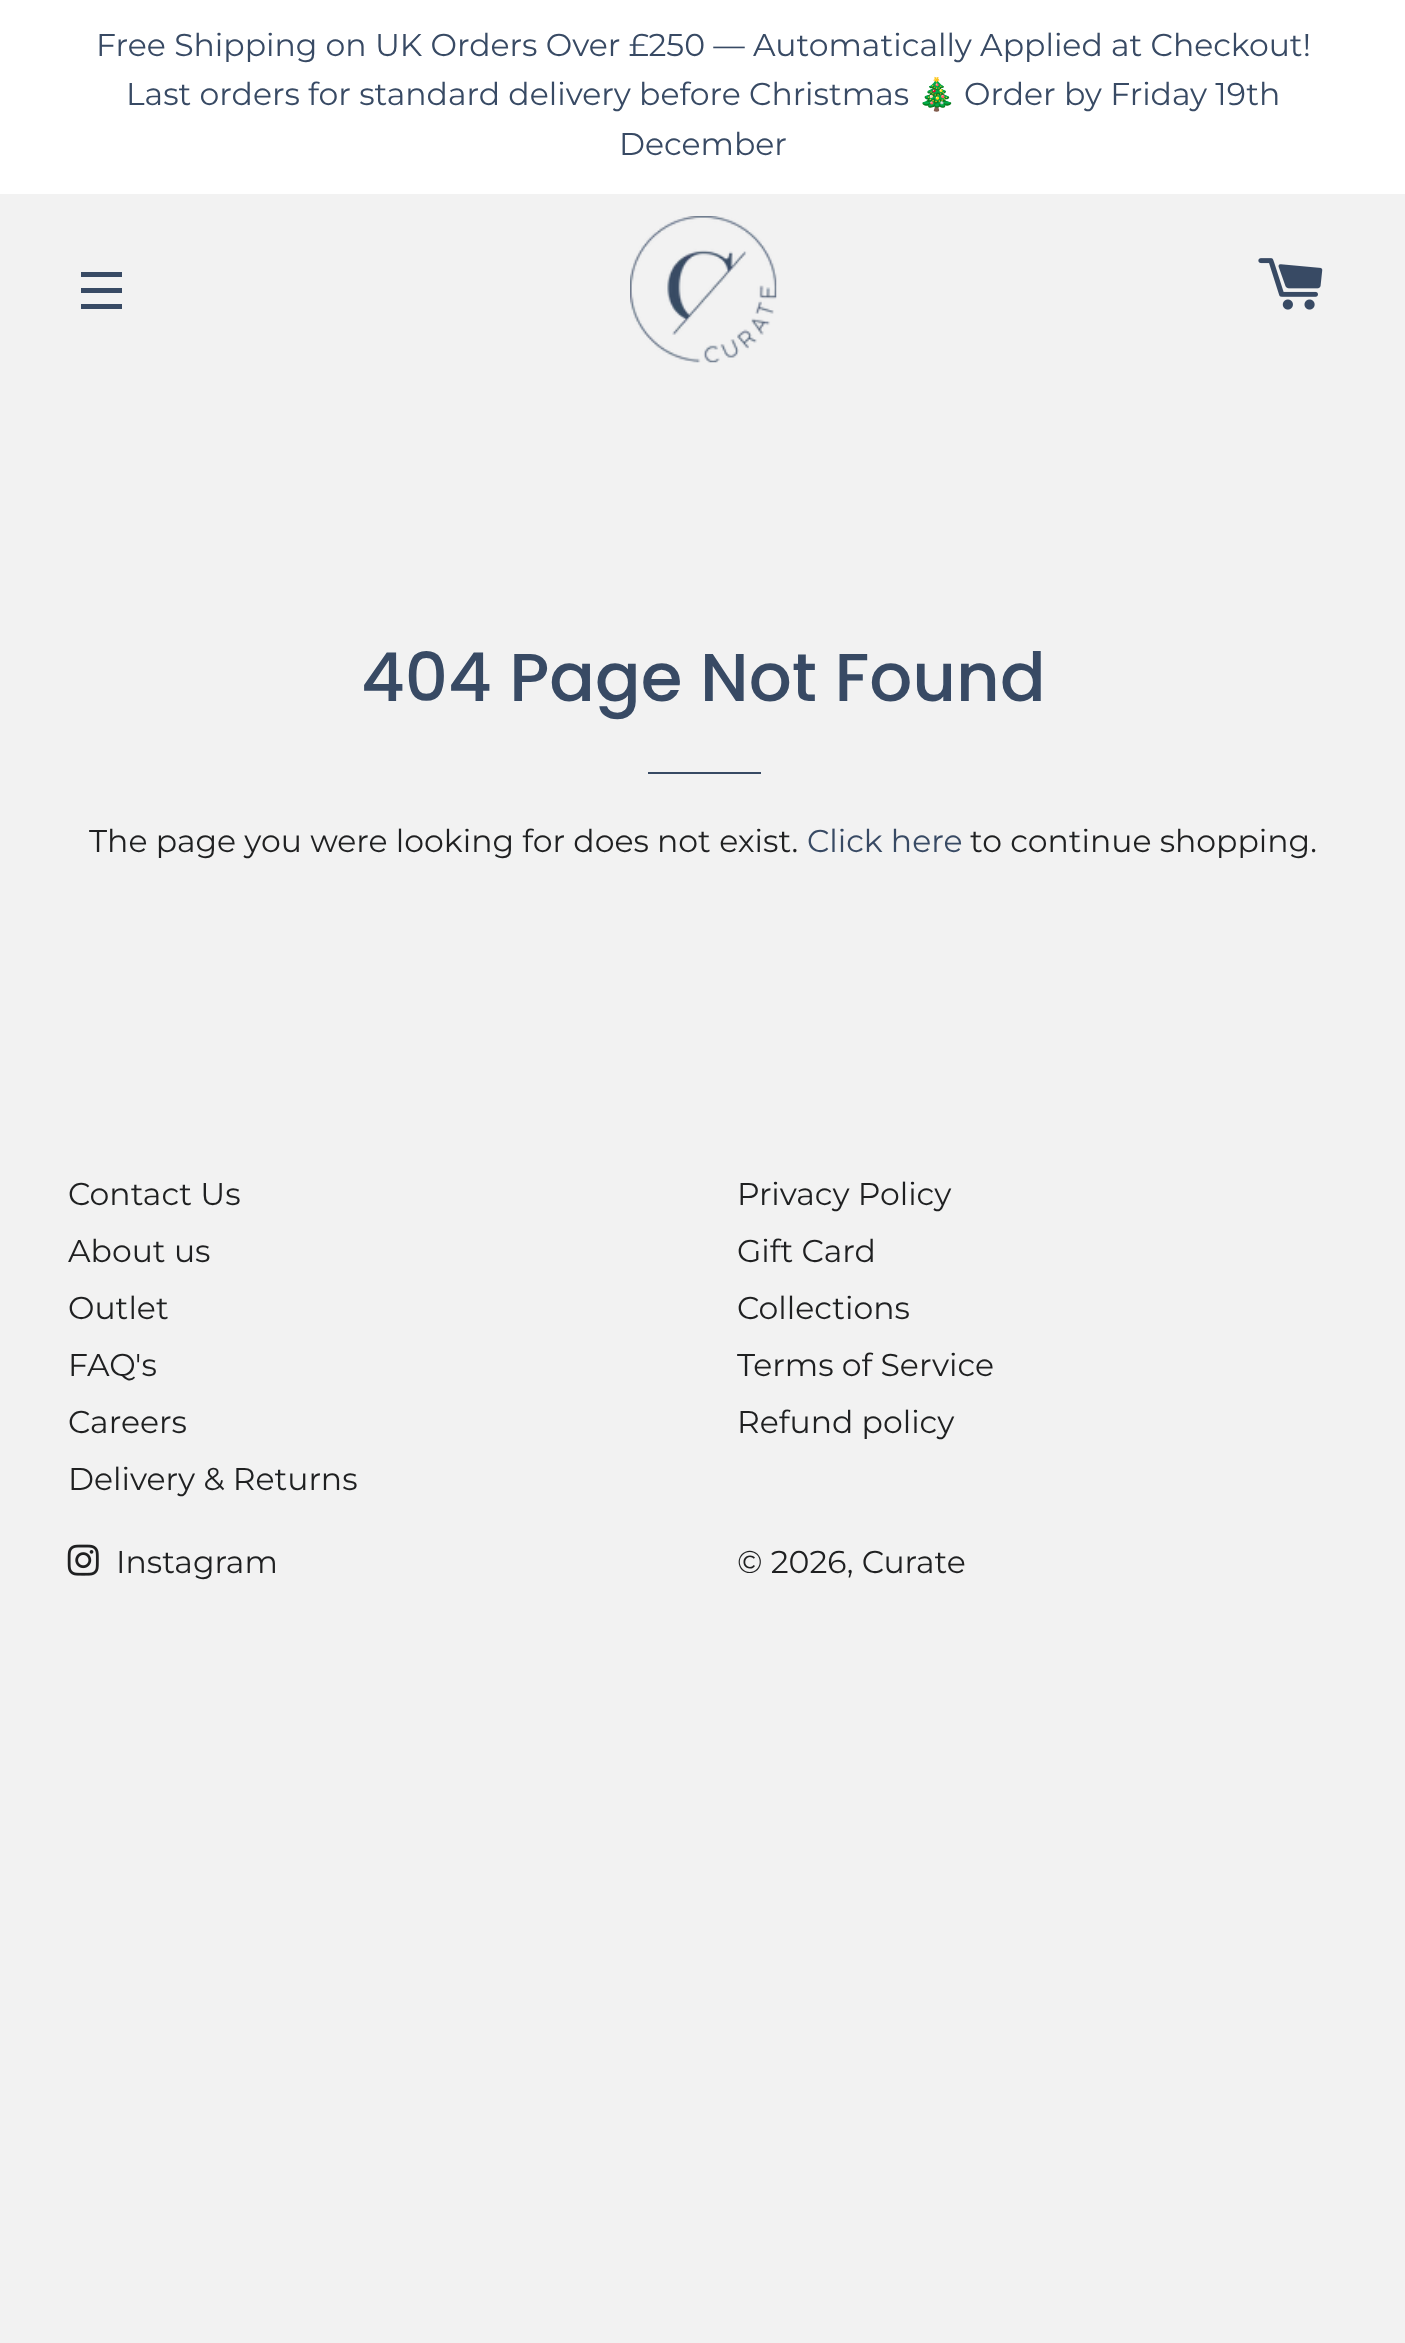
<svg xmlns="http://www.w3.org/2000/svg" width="1405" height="2343">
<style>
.a{font:31.5px Montserrat;fill:#384a64}
.b{font:31.5px Noto Color Emoji;fill:#384a64}
.c{font:500 67.5px Poppins;fill:#384a64}
.d{font:31.5px Montserrat;fill:#1f2021}
</style>
<rect width="100%" height="100%" fill="#f2f2f2"/>
<path fill="#fff" d="M0 0h1405v194H0z"/>
<path fill="#384a64" d="M81 272h41v5H81z"/>
<path fill="#384a64" d="M81 288h41v5H81z"/>
<path fill="#384a64" d="M81 304h41v5H81z"/>
<image href="1.png" x="630" y="216" width="147" height="147"/>
<image href="2.png" x="1258" y="258" width="65" height="52"/>
<path fill="#384a64" d="M648 772h113v2H648z"/>
<image href="3.png" x="67" y="1544" width="32" height="32"/>
<text class="a" x="96" y="56">Free Shipping on UK Orders Over £250 — Automatically Applied at Checkout!</text>
<text class="a" x="126" y="105">Last orders for standard delivery before Christmas</text>
<text class="b" x="917" y="105">🎄</text>
<text class="a" x="964" y="105">Order by Friday 19th</text>
<text class="a" x="619" y="155">December</text>
<text class="c" x="361" y="701">404 Page Not Found</text>
<text class="d" x="89" y="852">The page you were looking for does not exist.</text>
<text class="a" x="807" y="852">Click here</text>
<text class="d" x="970" y="852">to continue shopping.</text>
<text class="d" x="68" y="1205">Contact Us</text>
<text class="d" x="68" y="1262">About us</text>
<text class="d" x="68" y="1319">Outlet</text>
<text class="d" x="68" y="1376">FAQ's</text>
<text class="d" x="68" y="1433">Careers</text>
<text class="d" x="68" y="1490">Delivery &amp; Returns</text>
<text class="d" x="737" y="1205">Privacy Policy</text>
<text class="d" x="737" y="1262">Gift Card</text>
<text class="d" x="737" y="1319">Collections</text>
<text class="d" x="737" y="1376">Terms of Service</text>
<text class="d" x="737" y="1433">Refund policy</text>
<text class="d" x="116" y="1573">Instagram</text>
<text class="d" x="737" y="1573">© 2026, Curate</text>
</svg>
